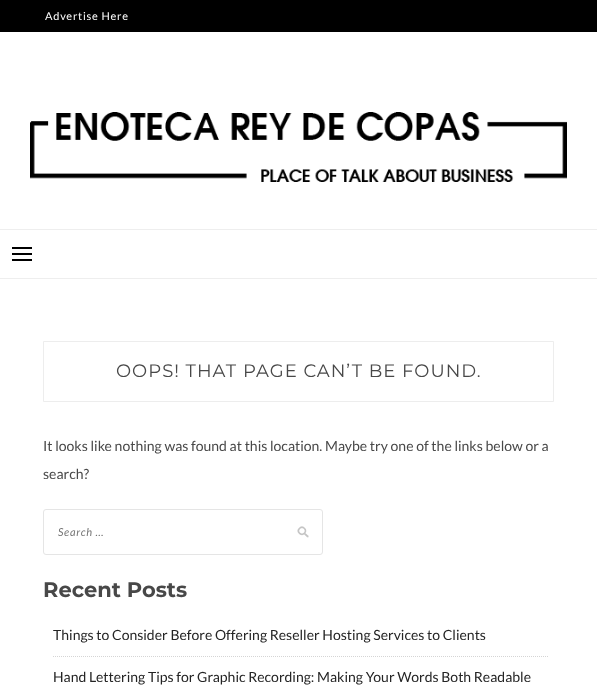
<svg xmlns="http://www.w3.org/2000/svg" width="597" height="694">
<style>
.a{font:11px Lato;letter-spacing:0.75px;fill:#fff}
.b{font:18px Montserrat;letter-spacing:1px;fill:#484848}
.c{font:14px Lato;fill:#484848}
.d{font:italic 11px Lato;letter-spacing:0.75px;fill:#757575}
.e{font:bold 21px Montserrat;fill:#484848}
.f{font:14px Lato;fill:#242424}
</style>
<rect width="100%" height="100%" fill="#fff"/>
<path fill="#000" d="M0 0h597v32H0z"/>
<image href="1.png" x="30" y="112" width="537" height="70"/>
<path fill="#eee" d="M0 229h597v1H0z"/>
<path fill="#eee" d="M0 278h597v1H0z"/>
<path fill="#000" d="M12 247h20v2H12z"/>
<path fill="#000" d="M12 253h20v2H12z"/>
<path fill="#000" d="M12 259h20v2H12z"/>
<path fill="none" stroke="#ededed" d="M43.5 341.5h510v60H43.5z"/>
<image href="2.png" x="297" y="526" width="12" height="12"/>
<rect fill="none" stroke="#e5e5e5" x="43.5" y="509.5" width="279" height="45" rx="2.5"/>
<path fill="none" stroke="#d5d5d5" stroke-dasharray="1 1" d="M53 656.5h496"/>
<text class="a" x="45" y="20">Advertise Here</text>
<text class="b" x="116" y="377">OOPS! THAT PAGE CAN’T BE FOUND.</text>
<text class="c" x="43" y="451">It looks like nothing was found at this location. Maybe try one of the links below or a</text>
<text class="c" x="43" y="479">search?</text>
<text class="d" x="58" y="536">Search …</text>
<text class="e" x="43" y="597">Recent Posts</text>
<text class="f" x="53" y="640">Things to Consider Before Offering Reseller Hosting Services to Clients</text>
<text class="f" x="53" y="682">Hand Lettering Tips for Graphic Recording: Making Your Words Both Readable</text>
</svg>
